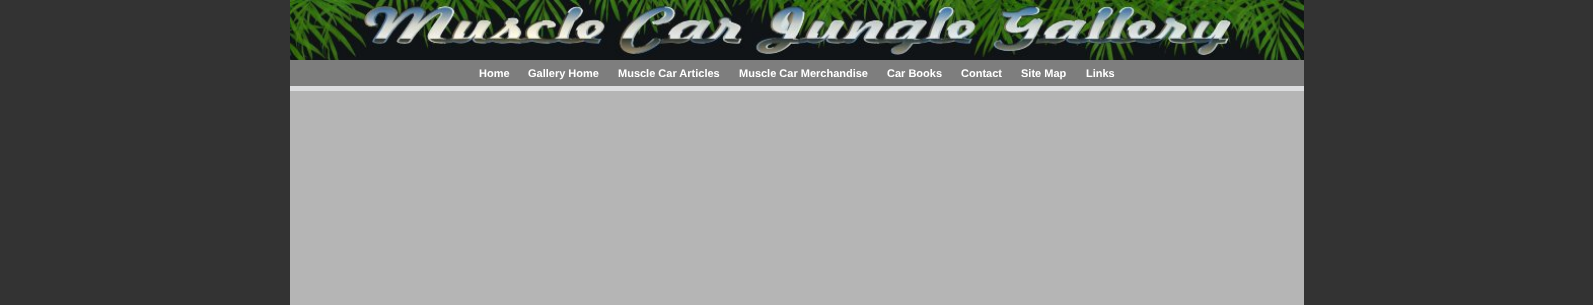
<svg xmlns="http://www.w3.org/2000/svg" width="1593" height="305">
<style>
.a{font:bold 11px Liberation Sans;fill:#fff}
</style>
<rect width="100%" height="100%" fill="#333"/>
<path fill="#b5b5b5" d="M290 91h1014v214H290z"/>
<image href="1.png" x="290" y="0" width="1014" height="60"/>
<path fill="#7e7e7e" d="M290 60h1014v26H290z"/>
<path fill="#dcdddf" d="M290 86h1014v5H290z"/>
<text class="a" x="479" y="77">Home</text>
<text class="a" x="528" y="77">Gallery Home</text>
<text class="a" x="618" y="77">Muscle Car Articles</text>
<text class="a" x="739" y="77">Muscle Car Merchandise</text>
<text class="a" x="887" y="77">Car Books</text>
<text class="a" x="961" y="77">Contact</text>
<text class="a" x="1021" y="77">Site Map</text>
<text class="a" x="1086" y="77">Links</text>
</svg>
